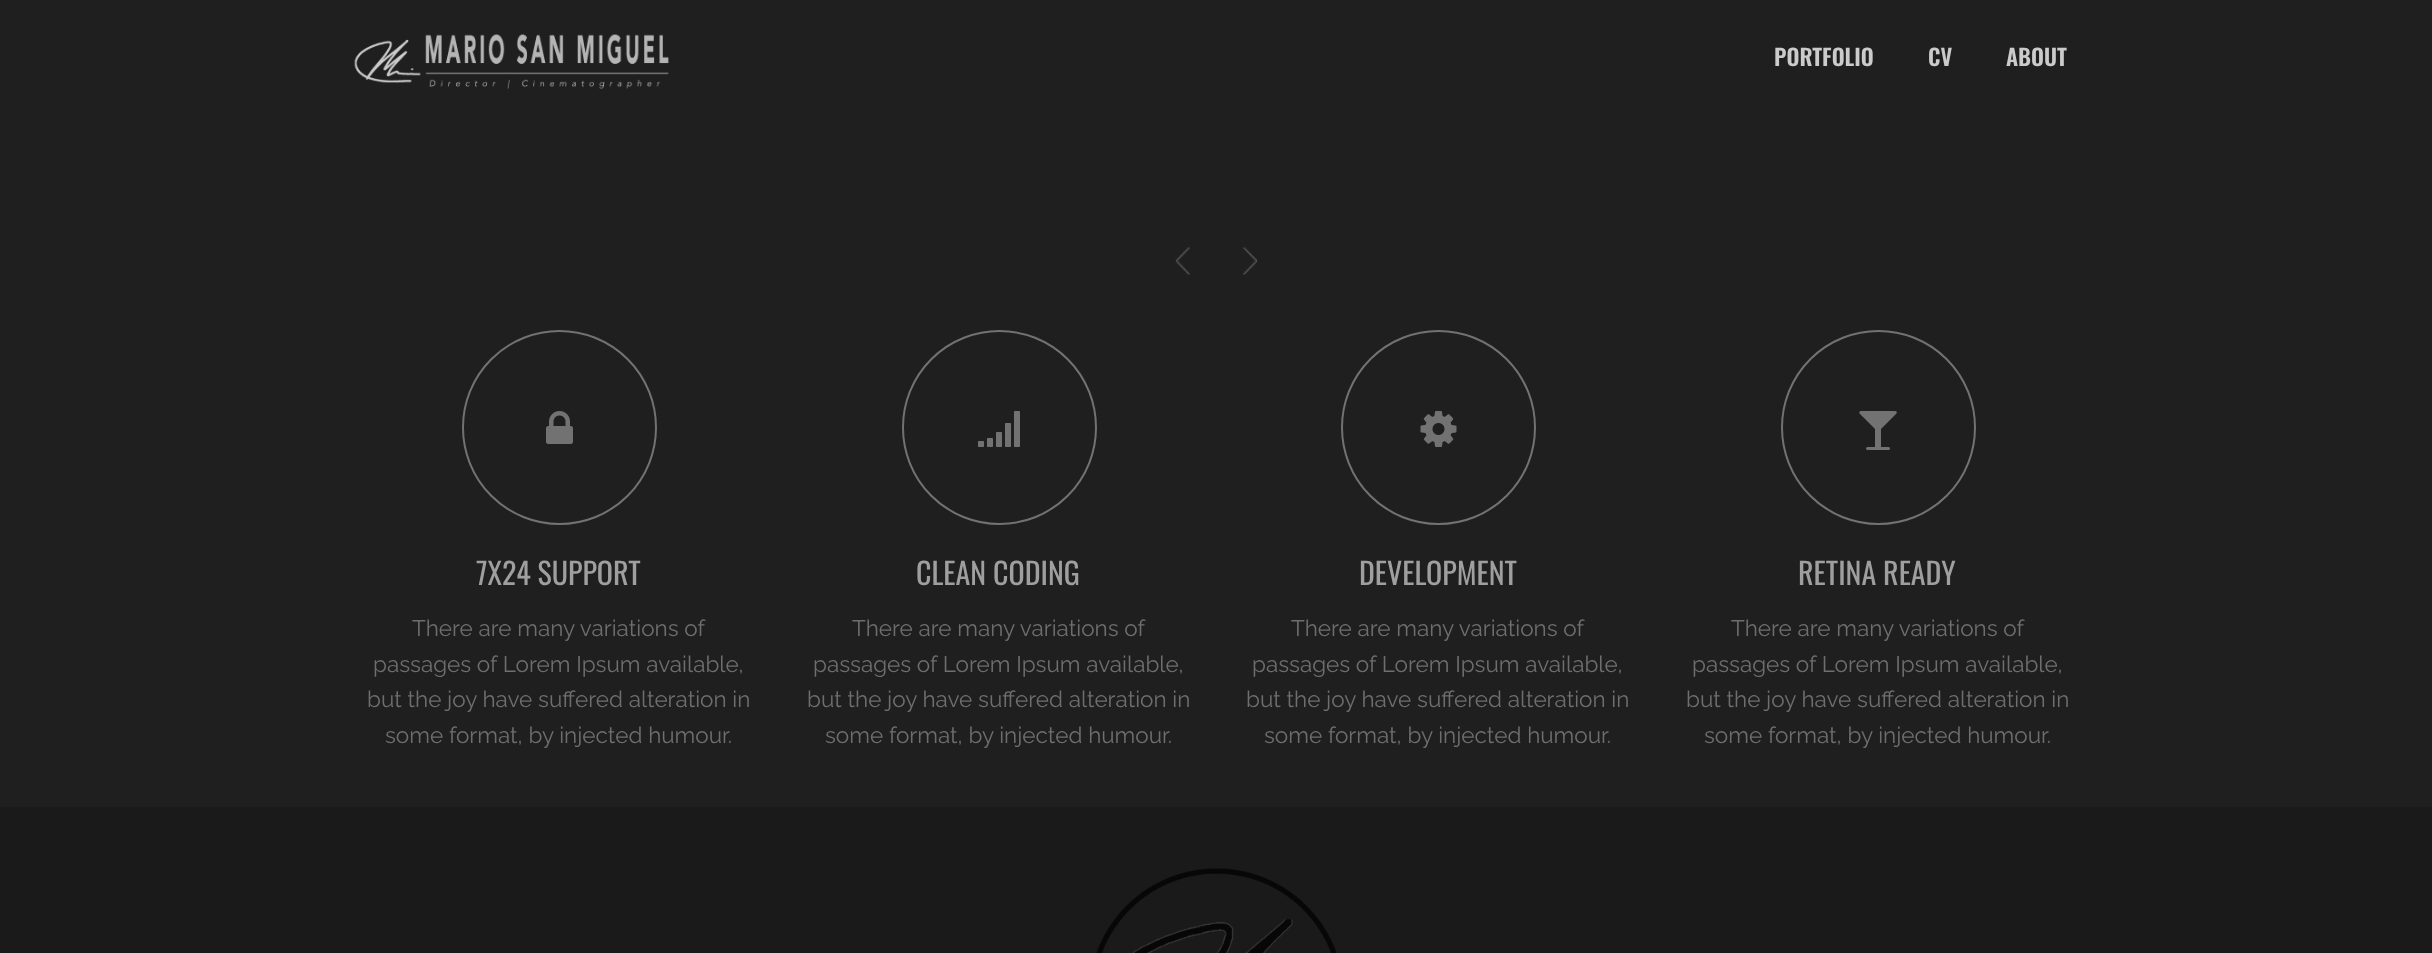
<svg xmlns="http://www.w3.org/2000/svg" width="2432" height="953">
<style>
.a{font:600 22.5px Oswald;fill:#cbcbcb}
.b{font:30px Oswald;fill:#9f9f9f}
.c{font:100 22.5px Raleway;fill:#6e6e6e}
</style>
<rect width="100%" height="100%" fill="#1f1f1f"/>
<image href="1.png" x="354" y="34" width="315" height="55"/>
<image href="2.png" x="1175" y="247" width="15" height="28"/>
<image href="3.png" x="1243" y="247" width="14" height="28"/>
<circle fill="none" stroke="#727272" stroke-width="2" cx="559.5" cy="427.5" r="96.5"/>
<image href="4.png" x="546" y="411" width="27" height="33"/>
<circle fill="none" stroke="#727272" stroke-width="2" cx="999.5" cy="427.5" r="96.5"/>
<image href="5.png" x="978" y="411" width="42" height="36"/>
<circle fill="none" stroke="#727272" stroke-width="2" cx="1438.5" cy="427.5" r="96.5"/>
<image href="6.png" x="1420" y="411" width="37" height="36"/>
<circle fill="none" stroke="#727272" stroke-width="2" cx="1878.5" cy="427.5" r="96.5"/>
<image href="7.png" x="1859" y="411" width="38" height="39"/>
<path fill="#1a1a1a" d="M0 807h2432v146H0z"/>
<image href="8.png" x="1096" y="868" width="241" height="85"/>
<text class="a" x="1774" y="66">PORTFOLIO</text>
<text class="a" x="1928" y="66">CV</text>
<text class="a" x="2006" y="66">ABOUT</text>
<text class="b" x="476" y="585">7X24 SUPPORT</text>
<text class="c" x="412" y="636">There are many variations of</text>
<text class="c" x="373" y="672">passages of Lorem Ipsum available,</text>
<text class="c" x="367" y="707">but the joy have suffered alteration in</text>
<text class="c" x="385" y="743">some format, by injected humour.</text>
<text class="b" x="916" y="585">CLEAN CODING</text>
<text class="c" x="852" y="636">There are many variations of</text>
<text class="c" x="813" y="672">passages of Lorem Ipsum available,</text>
<text class="c" x="807" y="707">but the joy have suffered alteration in</text>
<text class="c" x="825" y="743">some format, by injected humour.</text>
<text class="b" x="1359" y="585">DEVELOPMENT</text>
<text class="c" x="1291" y="636">There are many variations of</text>
<text class="c" x="1252" y="672">passages of Lorem Ipsum available,</text>
<text class="c" x="1246" y="707">but the joy have suffered alteration in</text>
<text class="c" x="1264" y="743">some format, by injected humour.</text>
<text class="b" x="1798" y="585">RETINA READY</text>
<text class="c" x="1731" y="636">There are many variations of</text>
<text class="c" x="1692" y="672">passages of Lorem Ipsum available,</text>
<text class="c" x="1686" y="707">but the joy have suffered alteration in</text>
<text class="c" x="1704" y="743">some format, by injected humour.</text>
</svg>
